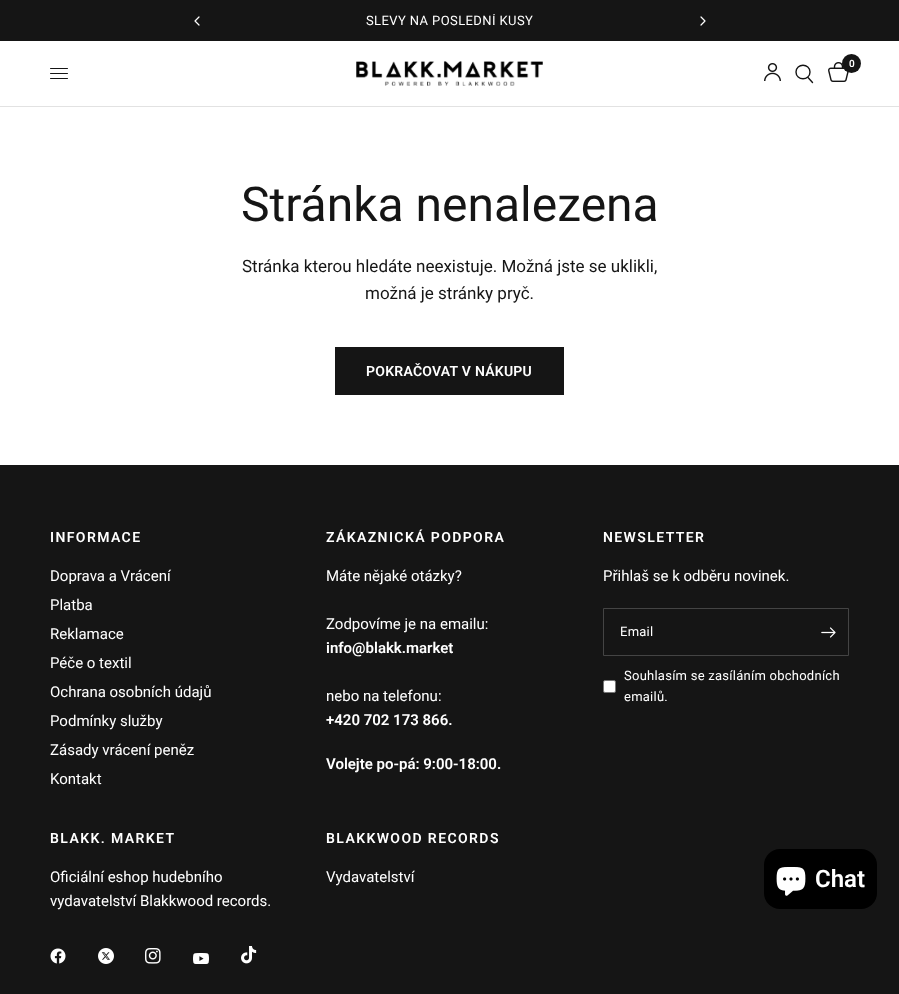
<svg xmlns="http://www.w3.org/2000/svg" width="899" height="994">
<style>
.a{font:13px Roboto;letter-spacing:0.4px;fill:#fff}
.b{font:600 10px Roboto;fill:#fff}
.c{font:48px Roboto;fill:#151515}
.d{font:17px Roboto;fill:#151515}
.e{font:600 14px Roboto;letter-spacing:0.25px;fill:#fff}
.f{font:600 14px Roboto;letter-spacing:1.4px;fill:#fff}
.g{font:15px Roboto;fill:#fff}
.h{font:600 15px Roboto;fill:#fff}
.i{font:13px Roboto;letter-spacing:0.25px;fill:#fff}
.j{font:600 24px Roboto;fill:#fff}
</style>
<defs>
<clipPath id="clip1"><path d="M200 14h500v13H200z"/></clipPath>
</defs>
<rect width="100%" height="100%" fill="#fff"/>
<path fill="#151515" d="M0 0h899v41H0z"/>
<path fill="none" stroke="#fff" stroke-width="1.2" stroke-linecap="round" stroke-linejoin="round" d="M199 17l-4 4l4 4"/>
<path fill="none" stroke="#fff" stroke-width="1.2" stroke-linecap="round" stroke-linejoin="round" d="M701 17l4 4l-4 4"/>
<path fill="#e2e2e2" d="M0 106h899v1H0z"/>
<rect fill="#151515" x="50" y="68" width="18" height="1" rx="0.5"/>
<rect fill="#151515" x="50" y="73" width="18" height="1" rx="0.5"/>
<rect fill="#151515" x="50" y="78" width="18" height="1" rx="0.5"/>
<image href="1.png" x="356" y="61" width="187" height="25"/>
<image href="2.png" x="764" y="63" width="17" height="18"/>
<path fill="none" stroke="#151515" stroke-width="1.4" stroke-linecap="round" stroke-linejoin="round" d="M808 77.5l4.5 5m-2.5-10.5c0 9-14 9-14 0c0-9 14-9 14 0z"/>
<image href="3.png" x="828" y="62" width="21" height="20"/>
<circle fill="#151515" cx="851.5" cy="63.5" r="9.5"/>
<path fill="#151515" d="M335 347h229v48H335z"/>
<path fill="#151515" d="M0 465h899v529H0z"/>
<path fill="none" stroke="#444" d="M603.5 608.5h245v47H603.5z"/>
<image href="4.png" x="821" y="627" width="15" height="11"/>
<rect fill="#fff" stroke="#767676" x="603.5" y="680.5" width="12" height="12" rx="1.5"/>
<image href="5.png" x="50" y="948" width="16" height="16"/>
<image href="6.png" x="98" y="948" width="16" height="16"/>
<image href="7.png" x="145" y="948" width="16" height="16"/>
<image href="8.png" x="193" y="953" width="16" height="11"/>
<image href="9.png" x="241" y="946" width="16" height="18"/>
<rect fill="#000" x="764" y="849" width="113" height="60" rx="16"/>
<image href="10.png" x="776" y="867" width="30" height="29"/>
<g clip-path="url(#clip1)">
<text class="a" x="366" y="25">SLEVY NA POSLEDNÍ KUSY</text>
</g>
<text class="b" x="849" y="67">0</text>
<text class="c" x="241" y="221">Stránka nenalezena</text>
<text class="d" x="242" y="272">Stránka kterou hledáte neexistuje. Možná jste se uklikli,</text>
<text class="d" x="365" y="299">možná je stránky pryč.</text>
<text class="e" x="366" y="376">POKRAČOVAT V NÁKUPU</text>
<text class="f" x="50" y="542">INFORMACE</text>
<text class="g" x="50" y="581">Doprava a Vrácení</text>
<text class="g" x="50" y="610">Platba</text>
<text class="g" x="50" y="639">Reklamace</text>
<text class="g" x="50" y="668">Péče o textil</text>
<text class="g" x="50" y="697">Ochrana osobních údajů</text>
<text class="g" x="50" y="726">Podmínky služby</text>
<text class="g" x="50" y="755">Zásady vrácení peněz</text>
<text class="g" x="50" y="784">Kontakt</text>
<text class="f" x="326" y="542">ZÁKAZNICKÁ PODPORA</text>
<text class="g" x="326" y="581">Máte nějaké otázky?</text>
<text class="g" x="326" y="629">Zodpovíme je na emailu:</text>
<text class="h" x="326" y="653">info@blakk.market</text>
<text class="g" x="326" y="701">nebo na telefonu:</text>
<text class="h" x="326" y="725">+420 702 173 866.</text>
<text class="h" x="326" y="769">Volejte po-pá: 9:00-18:00.</text>
<text class="f" x="603" y="542">NEWSLETTER</text>
<text class="g" x="603" y="581">Přihlaš se k odběru novinek.</text>
<text class="i" x="620" y="636">Email</text>
<text class="i" x="624" y="680">Souhlasím se zasíláním obchodních</text>
<text class="i" x="624" y="701">emailů.</text>
<text class="f" x="50" y="843">BLAKK. MARKET</text>
<text class="g" x="50" y="882">Oficiální eshop hudebního</text>
<text class="g" x="50" y="906">vydavatelství Blakkwood records.</text>
<text class="f" x="326" y="843">BLAKKWOOD RECORDS</text>
<text class="g" x="326" y="882">Vydavatelství</text>
<text class="j" x="815" y="887">Chat</text>
</svg>
